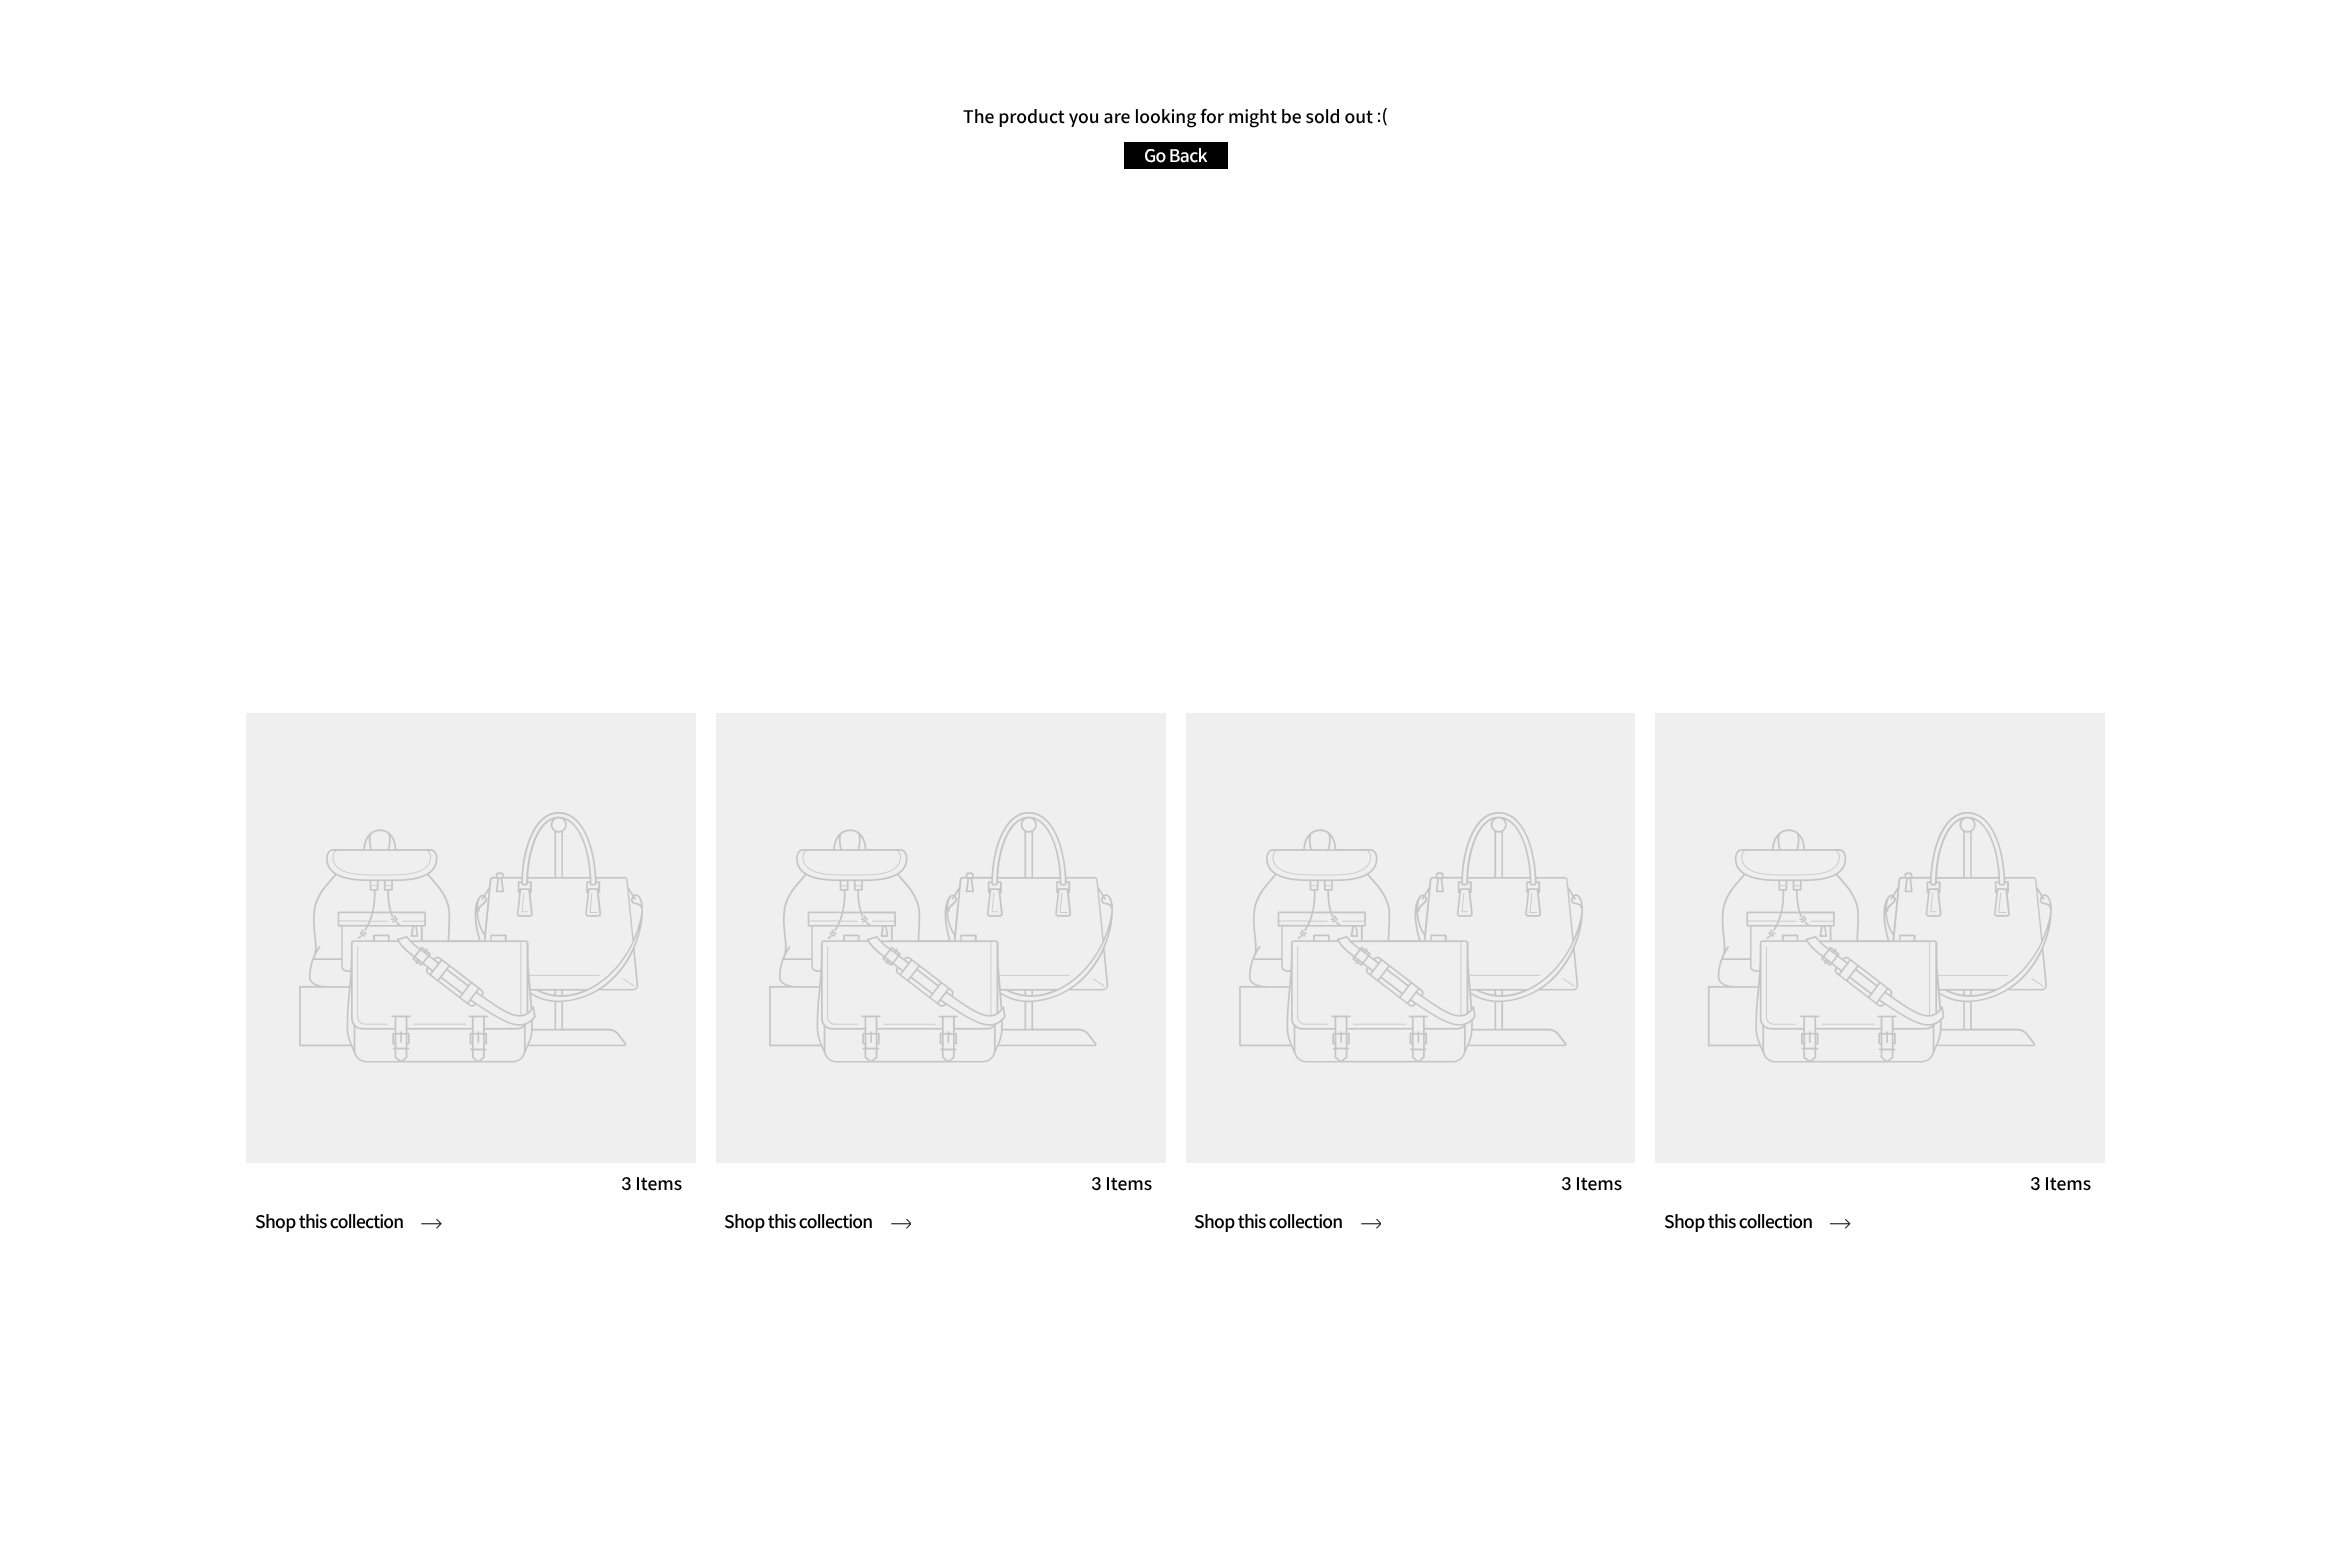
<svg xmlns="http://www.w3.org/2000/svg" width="2351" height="1544">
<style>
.a{font:500 17.5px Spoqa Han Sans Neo;fill:#000}
.b{font:500 17.5px Spoqa Han Sans Neo;letter-spacing:-0.7px;fill:#fff}
.c{font:500 17.5px Spoqa Han Sans Neo;letter-spacing:-0.7px;fill:#000}
</style>
<rect width="100%" height="100%" fill="#fff"/>
<path fill="#000" d="M1124 142h104v27H1124z"/>
<path fill="#efefef" d="M246 713h450v450H246z"/>
<image href="1.png" x="299" y="812" width="344" height="251"/>
<image href="2.png" x="421" y="1219" width="21" height="10"/>
<path fill="#efefef" d="M716 713h450v450H716z"/>
<image href="3.png" x="769" y="812" width="344" height="251"/>
<image href="4.png" x="891" y="1219" width="20" height="10"/>
<path fill="#efefef" d="M1186 713h449v450H1186z"/>
<image href="1.png" x="1239" y="812" width="344" height="251"/>
<image href="4.png" x="1361" y="1219" width="20" height="10"/>
<path fill="#efefef" d="M1655 713h450v450H1655z"/>
<image href="5.png" x="1707" y="812" width="345" height="251"/>
<image href="6.png" x="1830" y="1219" width="21" height="10"/>
<text class="a" x="963" y="123">The product you are looking for might be sold out :(</text>
<text class="b" x="1144" y="162">Go Back</text>
<text class="a" x="621" y="1190">3 Items</text>
<text class="c" x="255" y="1228">Shop this collection</text>
<text class="a" x="1091" y="1190">3 Items</text>
<text class="c" x="724" y="1228">Shop this collection</text>
<text class="a" x="1561" y="1190">3 Items</text>
<text class="c" x="1194" y="1228">Shop this collection</text>
<text class="a" x="2030" y="1190">3 Items</text>
<text class="c" x="1664" y="1228">Shop this collection</text>
</svg>
